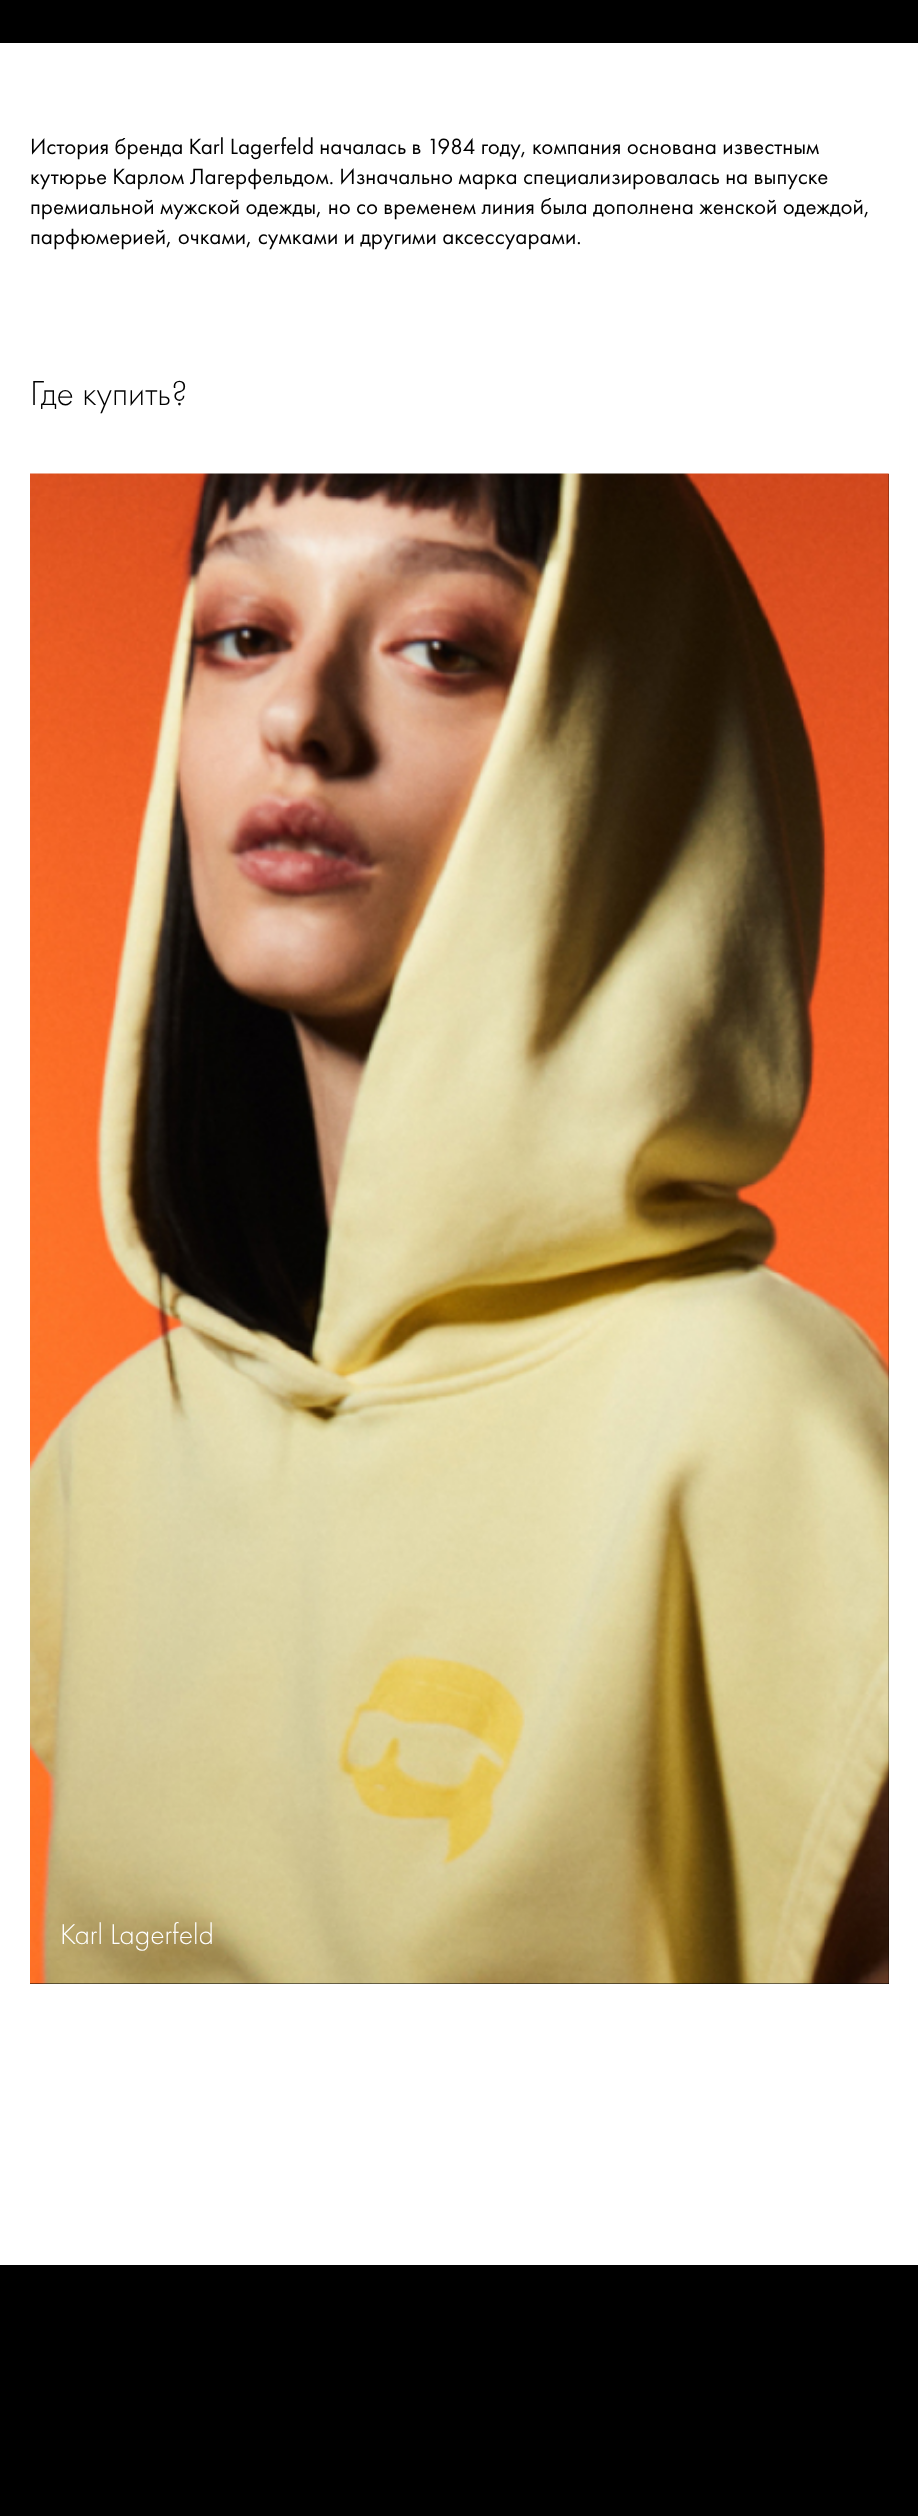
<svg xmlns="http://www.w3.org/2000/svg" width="918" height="2516">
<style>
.a{font:23px Futura PT;fill:#000}
.b{font:300 36px Futura PT;fill:#000}
.c{font:300 29.75px Futura PT;fill:#fff}
</style>
<rect width="100%" height="100%" fill="#fff"/>
<path fill="#000" d="M0 0h918v43H0z"/>
<path fill="#000" d="M30 474h859v1510H30z"/>
<image href="1.png" x="30" y="473" width="859" height="1511"/>
<path fill="#000" d="M0 2265h918v251H0z"/>
<text class="a" x="30" y="154">История бренда Karl Lagerfeld началась в 1984 году, компания основана известным</text>
<text class="a" x="30" y="184">кутюрье Карлом Лагерфельдом. Изначально марка специализировалась на выпуске</text>
<text class="a" x="30" y="214">премиальной мужской одежды, но со временем линия была дополнена женской одеждой,</text>
<text class="a" x="30" y="244">парфюмерией, очками, сумками и другими аксессуарами.</text>
<text class="b" x="30" y="405">Где купить?</text>
<text class="c" x="60" y="1944">Karl Lagerfeld</text>
</svg>
